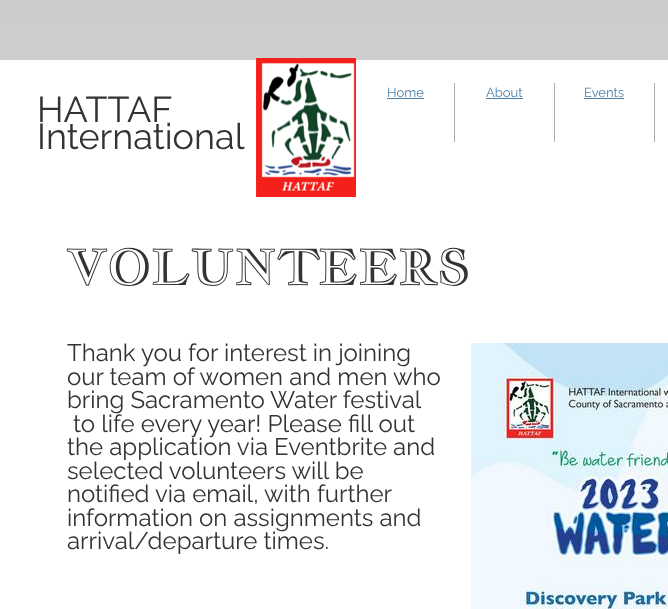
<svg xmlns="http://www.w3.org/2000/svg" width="668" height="609">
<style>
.a{font:100 13px Raleway;fill:#4b7fa8}
.b{font:100 36px Raleway;fill:#333}
.c{font:48px Jacques Francois Shadow;fill:#333}
.d{font:100 24px Raleway;fill:#333}
</style>
<defs>
<linearGradient id="g1" gradientUnits="userSpaceOnUse" x1="334" y1="0" x2="334" y2="609"><stop offset="0" stop-color="#ccc"/><stop offset="1" stop-color="#e5e5e5"/></linearGradient>
</defs>
<rect width="100%" height="100%" fill="#fff"/>
<path fill="url(#g1)" d="M0 0h668v60H0z"/>
<image href="1.png" x="256" y="58" width="100" height="139"/>
<path fill="#aeaeae" d="M454 83h1v59H454z"/>
<path fill="#4b7fa8" d="M387 98h37v1H387z"/>
<path fill="#aeaeae" d="M554 83h1v59H554z"/>
<path fill="#4b7fa8" d="M486 98h37v1H486z"/>
<path fill="#aeaeae" d="M654 83h1v59H654z"/>
<path fill="#4b7fa8" d="M584 98h40v1H584z"/>
<image href="2.png" x="471" y="343" width="197" height="266"/>
<text class="a" x="387" y="97">Home</text>
<text class="a" x="486" y="97">About</text>
<text class="a" x="584" y="97">Events</text>
<text class="b" x="37" y="122">HATTAF</text>
<text class="b" x="37" y="149">International</text>
<text class="c" x="67" y="284">VOLUNTEERS</text>
<text class="d" x="67" y="361">Thank you for interest in joining</text>
<text class="d" x="67" y="385">our team of women and men who</text>
<text class="d" x="67" y="408">bring Sacramento Water festival</text>
<text class="d" x="73" y="432">to life every year! Please fill out</text>
<text class="d" x="67" y="455">the application via Eventbrite and</text>
<text class="d" x="67" y="479">selected volunteers will be</text>
<text class="d" x="67" y="502">notified via email, with further</text>
<text class="d" x="67" y="526">information on assignments and</text>
<text class="d" x="67" y="549">arrival/departure times.</text>
</svg>
